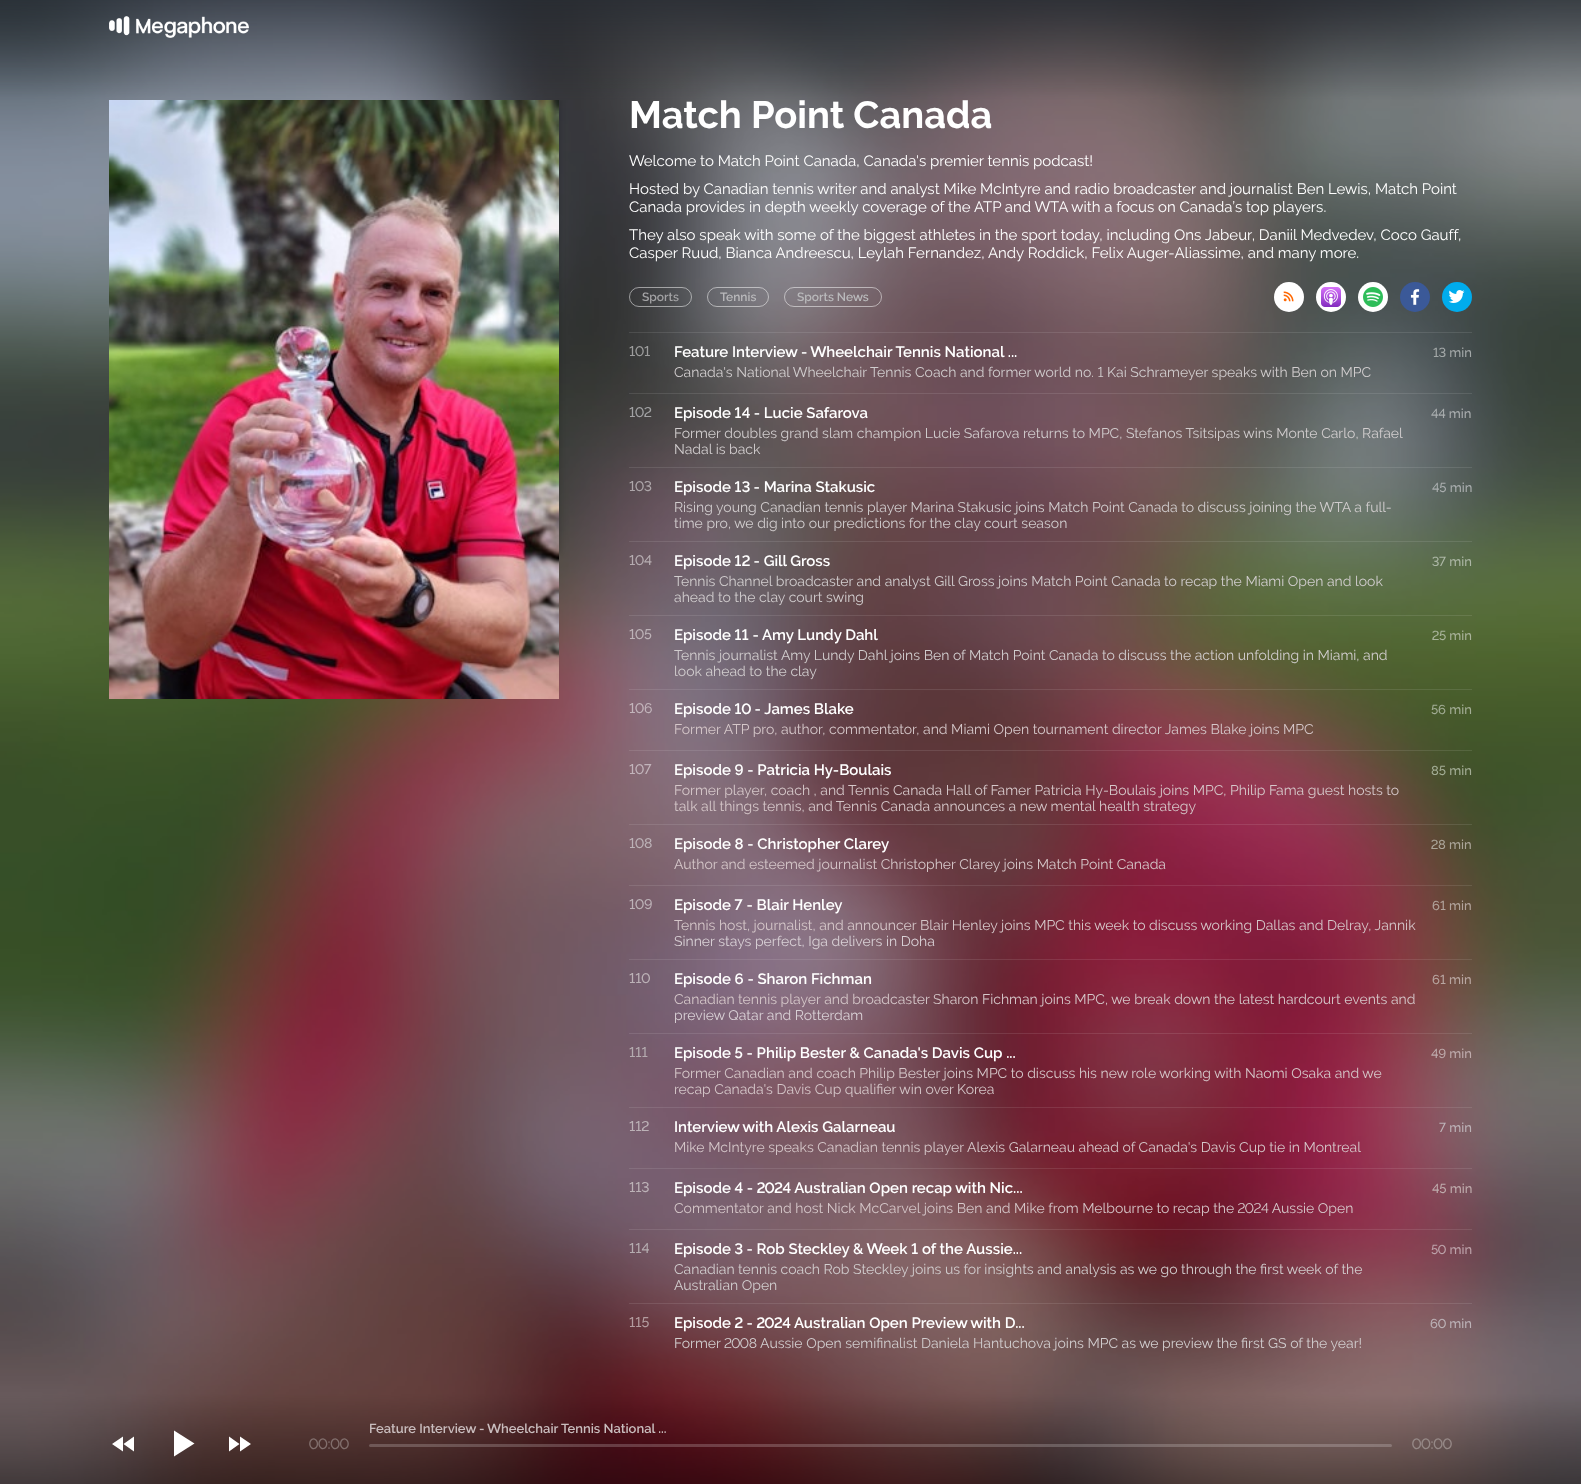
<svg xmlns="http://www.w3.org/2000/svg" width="1581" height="1484">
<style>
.a{font:bold 38px Raleway;fill:#fff}
.b{font:15px Raleway;fill:#fff}
.c{font:600 12px Raleway;fill:#a2a2a4}
.d{font:600 12px Raleway;fill:#b9b9bb}
.e{font:500 14px Raleway;fill:#9d9d9d}
.f{font:600 15px Raleway;fill:#fff}
.g{font:14px Raleway;fill:#d1cdce}
.h{font:500 13px Raleway;fill:#a3a8a8}
.i{font:500 14px Raleway;fill:#a2a2a4}
.j{font:500 13px Raleway;fill:#a9adae}
.k{font:500 14px Raleway;fill:#ada6a9}
.l{font:500 14px Raleway;fill:#b5acb0}
.m{font:500 13px Raleway;fill:#acb6a5}
.n{font:500 14px Raleway;fill:#bcb2b7}
.o{font:500 13px Raleway;fill:#a9b39a}
.p{font:500 14px Raleway;fill:#c2b4bb}
.q{font:14px Raleway;fill:#d5c7c9}
.r{font:500 13px Raleway;fill:#a3ad95}
.s{font:500 13px Raleway;fill:#aba599}
.t{font:14px Raleway;fill:#d9d1d6}
.u{font:500 13px Raleway;fill:#b2a49c}
.v{font:500 13px Raleway;fill:#b8a6a1}
.w{font:500 13px Raleway;fill:#beabac}
.x{font:500 13px Raleway;fill:#bcb2b7}
.y{font:500 13px Raleway;fill:#bca2a9}
.z{font:500 14px Raleway;fill:#b39c9f}
.a1{font:600 13px Raleway;fill:#c9bdbe}
.b1{font:500 15px Raleway;fill:#816e6c}
.c1{font:500 15px Raleway;fill:#958886}
</style>
<defs>
<clipPath id="clip1"><path d="M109 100h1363v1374H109z"/></clipPath>
</defs>
<rect width="100%" height="100%" fill="#fff"/>
<image href="1.png" x="0" y="0" width="1581" height="1484"/>
<image href="2.png" x="109" y="16" width="140" height="22"/>
<g clip-path="url(#clip1)">
<path fill="#0000001a" filter="blur(2.5px)" d="M107 98h454v454H107z"/>
</g>
<image href="3.png" x="109" y="100" width="450" height="599"/>
<rect fill="none" stroke="#ffffff80" x="629.5" y="287.5" width="62" height="19" rx="9.5"/>
<rect fill="none" stroke="#ffffff80" x="707.5" y="287.5" width="61" height="19" rx="9.5"/>
<rect fill="none" stroke="#ffffff80" x="784.5" y="287.5" width="97" height="19" rx="9.5"/>
<circle fill="#fff" cx="1289" cy="297" r="15"/>
<image href="4.png" x="1283" y="291" width="11" height="11"/>
<circle fill="#fff" cx="1331" cy="297" r="15"/>
<image href="5.png" x="1321" y="287" width="20" height="20"/>
<circle fill="#fff" cx="1373" cy="297" r="15"/>
<image href="6.png" x="1363" y="287" width="20" height="20"/>
<circle fill="#3b5998" cx="1415" cy="297" r="15"/>
<image href="7.png" x="1410" y="289" width="10" height="16"/>
<circle fill="#00aced" cx="1457" cy="297" r="15"/>
<image href="8.png" x="1448" y="290" width="17" height="13"/>
<path fill="#ffffff1a" d="M629 332h843v1H629z"/>
<path fill="#ffffff1a" d="M629 393h843v1H629z"/>
<path fill="#ffffff1a" d="M629 467h843v1H629z"/>
<path fill="#ffffff1a" d="M629 541h843v1H629z"/>
<path fill="#ffffff1a" d="M629 615h843v1H629z"/>
<path fill="#ffffff1a" d="M629 689h843v1H629z"/>
<path fill="#ffffff1a" d="M629 750h843v1H629z"/>
<path fill="#ffffff1a" d="M629 824h843v1H629z"/>
<path fill="#ffffff1a" d="M629 885h843v1H629z"/>
<path fill="#ffffff1a" d="M629 959h843v1H629z"/>
<path fill="#ffffff1a" d="M629 1033h843v1H629z"/>
<path fill="#ffffff1a" d="M629 1107h843v1H629z"/>
<path fill="#ffffff1a" d="M629 1168h843v1H629z"/>
<path fill="#ffffff1a" d="M629 1229h843v1H629z"/>
<path fill="#ffffff1a" d="M629 1303h843v1H629z"/>
<rect fill="#ffffff33" x="369" y="1444" width="1023" height="3" rx="1.5"/>
<path fill="#fff" d="M123.5 1444l10.5-7.5v15zm-.5 7.5l-11-7.5l11-7.5z"/>
<path fill="#fff" d="M174 1430.5l20.5 13l-20.5 13z"/>
<path fill="#fff" d="M240 1436.5l11 7.5l-11 7.5zm-11 15v-15l10.5 7.5z"/>
<text class="a" x="629" y="128">Match Point Canada</text>
<text class="b" x="629" y="166">Welcome to Match Point Canada, Canada's premier tennis podcast!</text>
<text class="b" x="629" y="194">Hosted by Canadian tennis writer and analyst Mike McIntyre and radio broadcaster and journalist Ben Lewis, Match Point</text>
<text class="b" x="629" y="212">Canada provides in depth weekly coverage of the ATP and WTA with a focus on Canada’s top players.</text>
<text class="b" x="629" y="240">They also speak with some of the biggest athletes in the sport today, including Ons Jabeur, Daniil Medvedev, Coco Gauff,</text>
<text class="b" x="629" y="258">Casper Ruud, Bianca Andreescu, Leylah Fernandez, Andy Roddick, Felix Auger-Aliassime, and many more.</text>
<text class="c" x="642" y="301">Sports</text>
<text class="d" x="720" y="301">Tennis</text>
<text class="d" x="797" y="301">Sports News</text>
<text class="e" x="629" y="356">101</text>
<text class="f" x="674" y="357">Feature Interview - Wheelchair Tennis National ...</text>
<text class="g" x="674" y="377">Canada's National Wheelchair Tennis Coach and former world no. 1 Kai Schrameyer speaks with Ben on MPC</text>
<text class="h" x="1433" y="357">13 min</text>
<text class="i" x="629" y="417">102</text>
<text class="f" x="674" y="418">Episode 14 - Lucie Safarova</text>
<text class="g" x="674" y="438">Former doubles grand slam champion Lucie Safarova returns to MPC, Stefanos Tsitsipas wins Monte Carlo, Rafael</text>
<text class="g" x="674" y="454">Nadal is back</text>
<text class="j" x="1431" y="418">44 min</text>
<text class="k" x="629" y="491">103</text>
<text class="f" x="674" y="492">Episode 13 - Marina Stakusic</text>
<text class="g" x="674" y="512">Rising young Canadian tennis player Marina Stakusic joins Match Point Canada to discuss joining the WTA a full-</text>
<text class="g" x="674" y="528">time pro, we dig into our predictions for the clay court season</text>
<text class="j" x="1432" y="492">45 min</text>
<text class="l" x="629" y="565">104</text>
<text class="f" x="674" y="566">Episode 12 - Gill Gross</text>
<text class="g" x="674" y="586">Tennis Channel broadcaster and analyst Gill Gross joins Match Point Canada to recap the Miami Open and look</text>
<text class="g" x="674" y="602">ahead to the clay court swing</text>
<text class="m" x="1432" y="566">37 min</text>
<text class="n" x="629" y="639">105</text>
<text class="f" x="674" y="640">Episode 11 - Amy Lundy Dahl</text>
<text class="g" x="674" y="660">Tennis journalist Amy Lundy Dahl joins Ben of Match Point Canada to discuss the action unfolding in Miami, and</text>
<text class="g" x="674" y="676">look ahead to the clay</text>
<text class="o" x="1432" y="640">25 min</text>
<text class="p" x="629" y="713">106</text>
<text class="f" x="674" y="714">Episode 10 - James Blake</text>
<text class="q" x="674" y="734">Former ATP pro, author, commentator, and Miami Open tournament director James Blake joins MPC</text>
<text class="r" x="1431" y="714">56 min</text>
<text class="p" x="629" y="774">107</text>
<text class="f" x="674" y="775">Episode 9 - Patricia Hy-Boulais</text>
<text class="q" x="674" y="795">Former player, coach , and Tennis Canada Hall of Famer Patricia Hy-Boulais joins MPC, Philip Fama guest hosts to</text>
<text class="q" x="674" y="811">talk all things tennis, and Tennis Canada announces a new mental health strategy</text>
<text class="r" x="1431" y="775">85 min</text>
<text class="n" x="629" y="848">108</text>
<text class="f" x="674" y="849">Episode 8 - Christopher Clarey</text>
<text class="q" x="674" y="869">Author and esteemed journalist Christopher Clarey joins Match Point Canada</text>
<text class="s" x="1431" y="849">28 min</text>
<text class="n" x="629" y="909">109</text>
<text class="f" x="674" y="910">Episode 7 - Blair Henley</text>
<text class="q" x="674" y="930">Tennis host, journalist, and announcer Blair Henley joins MPC this week to discuss working Dallas and Delray, Jannik</text>
<text class="t" x="674" y="946">Sinner stays perfect, Iga delivers in Doha</text>
<text class="u" x="1432" y="910">61 min</text>
<text class="n" x="629" y="983">110</text>
<text class="f" x="674" y="984">Episode 6 - Sharon Fichman</text>
<text class="q" x="674" y="1004">Canadian tennis player and broadcaster Sharon Fichman joins MPC, we break down the latest hardcourt events and</text>
<text class="t" x="674" y="1020">preview Qatar and Rotterdam</text>
<text class="v" x="1432" y="984">61 min</text>
<text class="l" x="629" y="1057">111</text>
<text class="f" x="674" y="1058">Episode 5 - Philip Bester &amp; Canada's Davis Cup ...</text>
<text class="q" x="674" y="1078">Former Canadian and coach Philip Bester joins MPC to discuss his new role working with Naomi Osaka and we</text>
<text class="q" x="674" y="1094">recap Canada's Davis Cup qualifier win over Korea</text>
<text class="w" x="1431" y="1058">49 min</text>
<text class="n" x="629" y="1131">112</text>
<text class="f" x="674" y="1132">Interview with Alexis Galarneau</text>
<text class="q" x="674" y="1152">Mike McIntyre speaks Canadian tennis player Alexis Galarneau ahead of Canada's Davis Cup tie in Montreal</text>
<text class="x" x="1439" y="1132">7 min</text>
<text class="n" x="629" y="1192">113</text>
<text class="f" x="674" y="1193">Episode 4 - 2024 Australian Open recap with Nic...</text>
<text class="q" x="674" y="1213">Commentator and host Nick McCarvel joins Ben and Mike from Melbourne to recap the 2024 Aussie Open</text>
<text class="w" x="1432" y="1193">45 min</text>
<text class="l" x="629" y="1253">114</text>
<text class="f" x="674" y="1254">Episode 3 - Rob Steckley &amp; Week 1 of the Aussie...</text>
<text class="g" x="674" y="1274">Canadian tennis coach Rob Steckley joins us for insights and analysis as we go through the first week of the</text>
<text class="g" x="674" y="1290">Australian Open</text>
<text class="y" x="1431" y="1254">50 min</text>
<text class="z" x="629" y="1327">115</text>
<text class="f" x="674" y="1328">Episode 2 - 2024 Australian Open Preview with D...</text>
<text class="g" x="674" y="1348">Former 2008 Aussie Open semifinalist Daniela Hantuchova joins MPC as we preview the first GS of the year!</text>
<text class="x" x="1430" y="1328">60 min</text>
<text class="a1" x="369" y="1433">Feature Interview - Wheelchair Tennis National ...</text>
<text class="b1" x="309" y="1449">00:00</text>
<text class="c1" x="1412" y="1449">00:00</text>
</svg>
